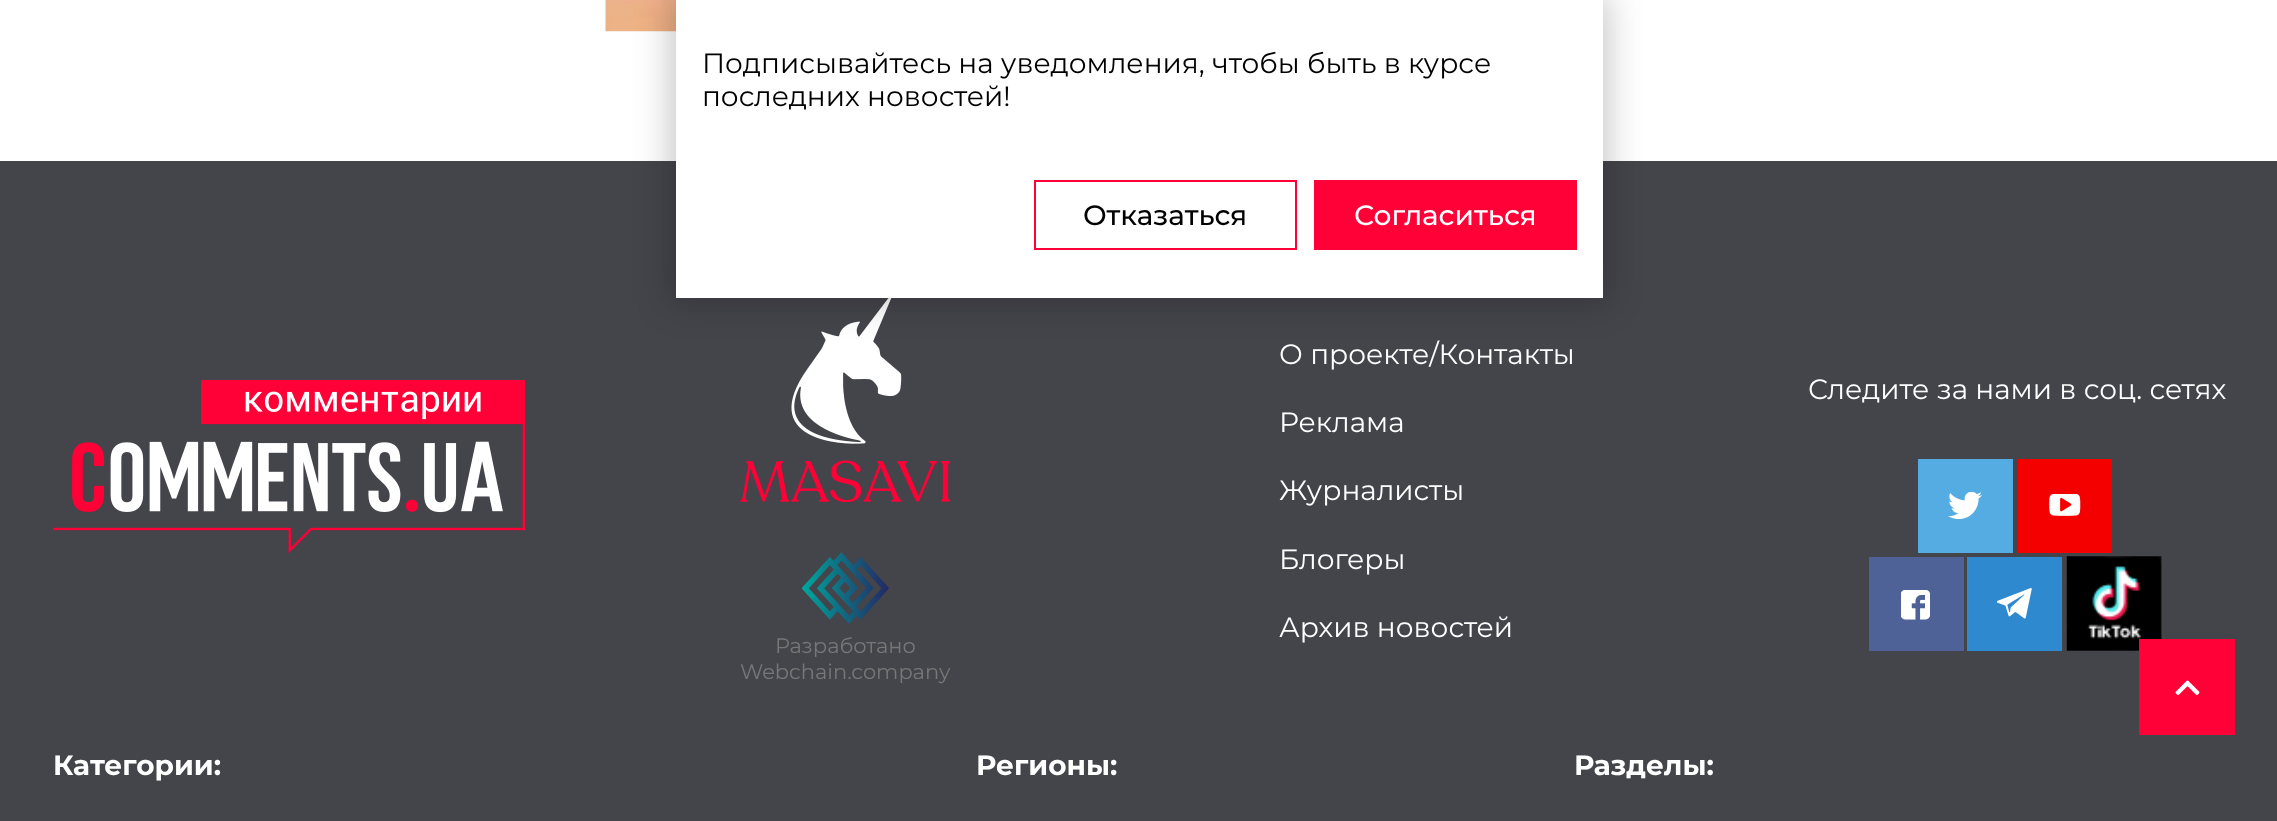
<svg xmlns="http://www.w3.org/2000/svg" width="2277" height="821">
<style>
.a{font:28px Montserrat;fill:#000}
.b{font:500 28px Montserrat;fill:#000}
.c{font:500 28px Montserrat;fill:#fff}
.d{font:28px Montserrat;fill:#fff}
.e{font:21px Montserrat;fill:#777}
.f{font:bold 28px Montserrat;fill:#fff}
</style>
<rect width="100%" height="100%" fill="#fff"/>
<image href="1.png" x="605" y="0" width="71" height="32"/>
<path fill="#44444b" d="M0 161h2277v660H0z"/>
<image href="8.png" x="740" y="298" width="210" height="204"/>
<path fill="#00000038" filter="blur(17.5px)" d="M670 -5h938v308H670z"/>
<path fill="#fff" d="M676 0h927v298H676z"/>
<path fill="none" stroke="#ff0037" stroke-width="2" d="M1035 181h261v68H1035z"/>
<path fill="none" stroke="#ff0037" stroke-width="2" d="M1315 181h261v68H1315z"/>
<path fill="#ff0037" d="M1316 182h259v66H1316z"/>
<image href="2.png" x="53" y="380" width="472" height="174"/>
<path fill="#55ace3" d="M1918 459h95v94H1918z"/>
<image href="3.png" x="1948" y="492" width="34" height="28"/>
<path fill="#f40000" d="M2018 459h94v94H2018z"/>
<image href="4.png" x="2049" y="494" width="32" height="22"/>
<path fill="#4e6297" d="M1869 557h95v94H1869z"/>
<image href="5.png" x="1901" y="590" width="29" height="30"/>
<path fill="#2f89ce" d="M1967 557h95v94H1967z"/>
<image href="6.png" x="1997" y="588" width="35" height="31"/>
<image href="7.png" x="2066" y="556" width="96" height="95"/>
<image href="9.png" x="802" y="552" width="87" height="72"/>
<path fill="#ff0037" d="M2139 639h96v96H2139z"/>
<image href="10.png" x="2175" y="680" width="25" height="15"/>
<text class="a" x="702" y="73">Подписывайтесь на уведомления, чтобы быть в курсе</text>
<text class="a" x="702" y="106">последних новостей!</text>
<text class="b" x="1083" y="225">Отказаться</text>
<text class="c" x="1354" y="225">Согласиться</text>
<text class="d" x="1279" y="364">О проекте/Контакты</text>
<text class="d" x="1279" y="432">Реклама</text>
<text class="d" x="1279" y="500">Журналисты</text>
<text class="d" x="1279" y="569">Блогеры</text>
<text class="d" x="1279" y="637">Архив новостей</text>
<text class="d" x="1808" y="399">Следите за нами в соц. сетях</text>
<text class="e" x="775" y="653">Разработано</text>
<text class="e" x="740" y="679">Webchain.company</text>
<text class="f" x="53" y="775">Категории:</text>
<text class="f" x="976" y="775">Регионы:</text>
<text class="f" x="1574" y="775">Разделы:</text>
</svg>
